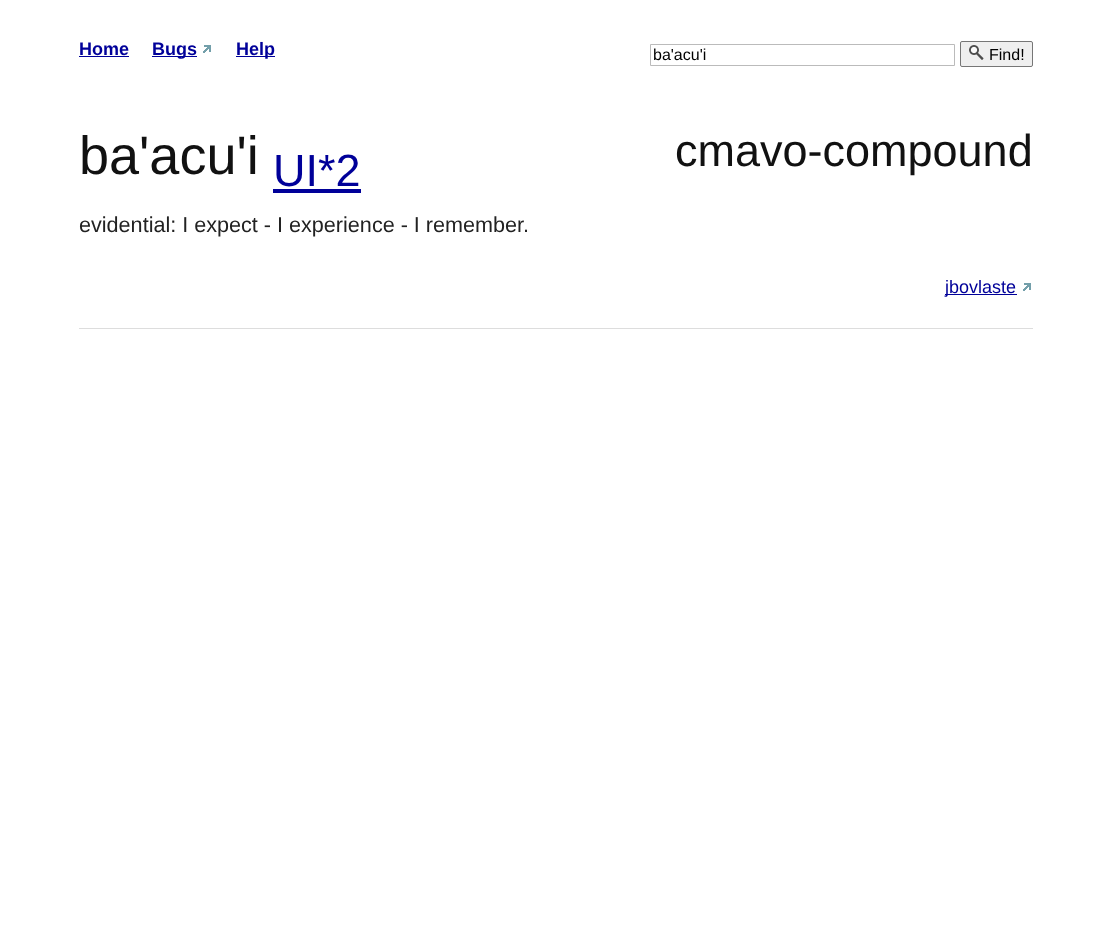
<svg xmlns="http://www.w3.org/2000/svg" width="1111" height="925">
<style>
.a{font:bold 18px Liberation Sans;fill:#009}
.b{font:16px Liberation Sans;fill:#000}
.c{font:54px Liberation Sans;fill:#111}
.d{font:45px Liberation Sans;fill:#009}
.e{font:45px Liberation Sans;fill:#111}
.f{font:21.6px Liberation Sans;fill:#222}
.g{font:18px Liberation Sans;fill:#009}
</style>
<rect width="100%" height="100%" fill="#fff"/>
<path fill="#009" d="M79 56h50v1H79z"/>
<path fill="#009" d="M152 56h45v1H152z"/>
<image href="1.png" x="203" y="45" width="8" height="8"/>
<path fill="#009" d="M236 56h39v1H236z"/>
<path fill="none" stroke="#bbb" d="M650.5 44.5h304v21H650.5z"/>
<rect fill="#efefef" stroke="#767676" x="960.5" y="41.5" width="72" height="25" rx="1.5"/>
<image href="2.png" x="969" y="45" width="15" height="15"/>
<path fill="#009" d="M273 189h88v4H273z"/>
<path fill="#009" d="M945 294h72v1H945z"/>
<image href="1.png" x="1023" y="283" width="8" height="8"/>
<path fill="#ddd" d="M79 328h954v1H79z"/>
<text class="a" x="79" y="55">Home</text>
<text class="a" x="152" y="55">Bugs</text>
<text class="a" x="236" y="55">Help</text>
<text class="b" x="653" y="60">ba'acu'i</text>
<text class="b" x="989" y="60">Find!</text>
<text class="c" x="79" y="174">ba'acu'i</text>
<text class="d" x="273" y="186">UI*2</text>
<text class="e" x="675" y="166">cmavo-compound</text>
<text class="f" x="79" y="232">evidential: I expect - I experience - I remember.</text>
<text class="g" x="945" y="293">jbovlaste</text>
</svg>
